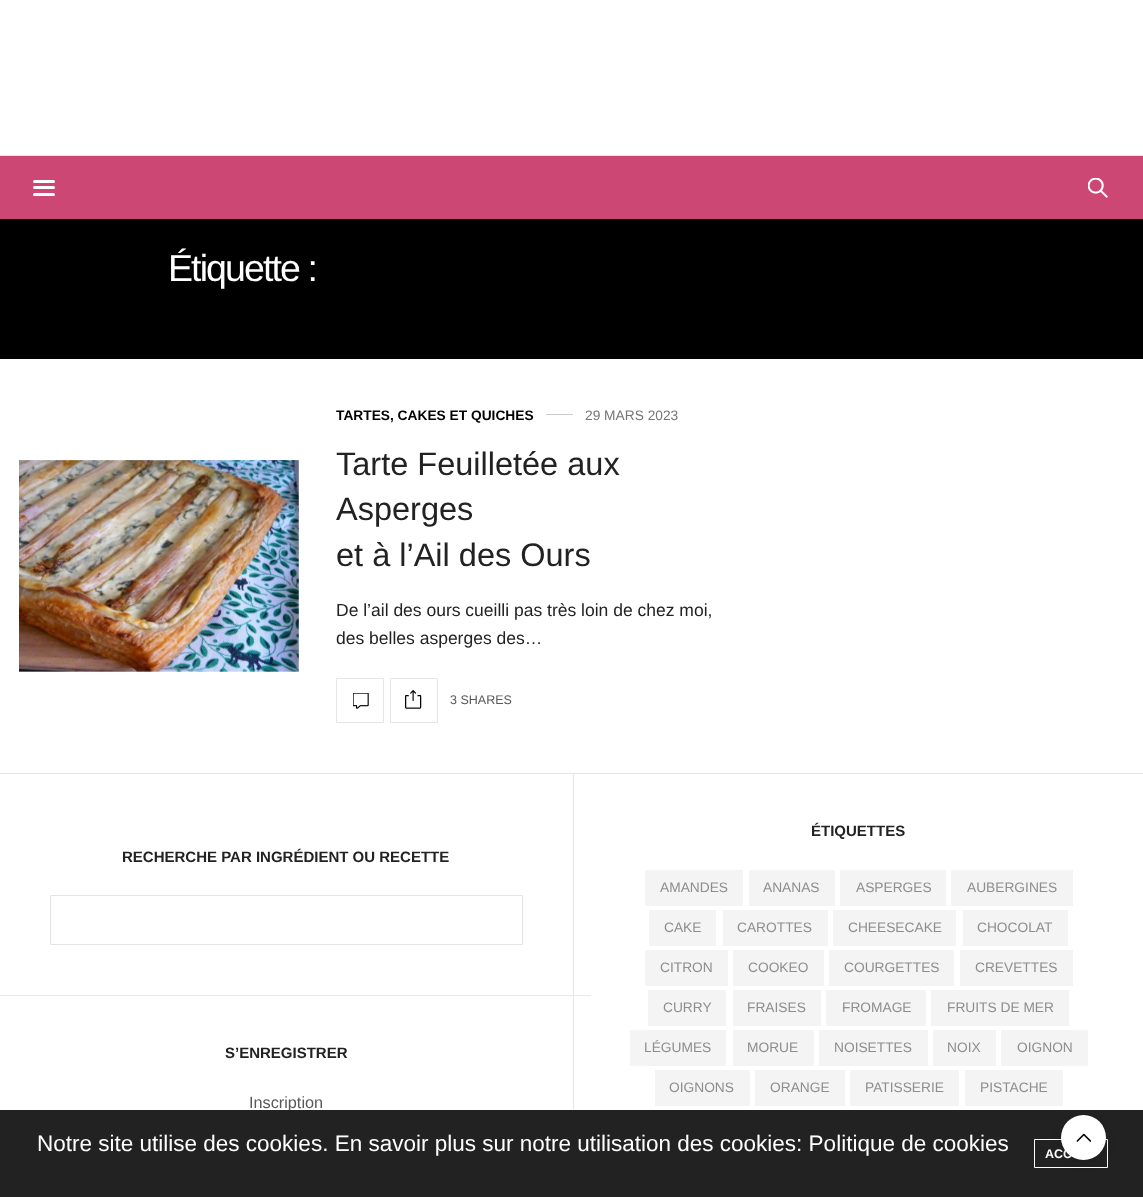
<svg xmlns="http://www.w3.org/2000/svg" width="1143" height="1197">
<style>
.a{font:37.5px Liberation Sans;letter-spacing:-1.9px;fill:#fff}
.b{font:bold 13.75px Liberation Sans;fill:#000}
.c{font:13.75px Liberation Sans;fill:#767676}
.d{font:32.5px Liberation Sans;fill:#222}
.e{font:17.5px Liberation Sans;fill:#222}
.f{font:12.5px Liberation Sans;fill:#595959}
.g{font:bold 15px Liberation Sans;fill:#222}
.h{font:16.25px Liberation Sans;fill:#595959}
.i{font:13.75px Liberation Sans;fill:#8e8e8e}
.j{font:22.5px Liberation Sans;fill:#fff}
.k{font:bold 12.5px Liberation Sans;fill:#fff}
</style>
<rect width="100%" height="100%" fill="#fff"/>
<path fill="#e6e6e6" d="M0 155h1143v1H0z"/>
<path fill="#cc4773" d="M0 156h1143v63H0z"/>
<rect fill="#fff" x="33" y="180" width="22" height="3" rx="1.5"/>
<rect fill="#fff" x="33" y="186" width="22" height="3" rx="1.5"/>
<rect fill="#fff" x="33" y="193" width="22" height="3" rx="1.5"/>
<image href="1.png" x="1088" y="178" width="20" height="20"/>
<path fill="#000" d="M0 219h1143v140H0z"/>
<image href="2.png" x="19" y="460" width="280" height="212"/>
<path fill="#ccc" d="M546 414h27v1H546z"/>
<path fill="none" stroke="#e6e6e6" d="M336.5 678.5h47v44H336.5z"/>
<image href="3.png" x="353" y="693" width="16" height="16"/>
<path fill="none" stroke="#e6e6e6" d="M390.5 678.5h47v44H390.5z"/>
<image href="4.png" x="405" y="690" width="17" height="19"/>
<path fill="#e6e6e6" d="M0 773h1143v1H0z"/>
<path fill="none" stroke="#e5e5e5" d="M50.5 895.5h472v49H50.5z"/>
<path fill="#e6e6e6" d="M573 774h1v336H573z"/>
<path fill="#eaeaea" d="M0 995h591v1H0z"/>
<path fill="#f4f4f4" d="M645 870h98v36H645z"/>
<path fill="#f4f4f4" d="M749 870h86v36H749z"/>
<path fill="#f4f4f4" d="M840 870h106v36H840z"/>
<path fill="#f4f4f4" d="M951 870h122v36H951z"/>
<path fill="#f4f4f4" d="M649 910h67v36H649z"/>
<path fill="#f4f4f4" d="M723 910h105v36H723z"/>
<path fill="#f4f4f4" d="M833 910h123v36H833z"/>
<path fill="#f4f4f4" d="M963 910h105v36H963z"/>
<path fill="#f4f4f4" d="M645 950h83v36H645z"/>
<path fill="#f4f4f4" d="M733 950h91v36H733z"/>
<path fill="#f4f4f4" d="M829 950h125v36H829z"/>
<path fill="#f4f4f4" d="M960 950h113v36H960z"/>
<path fill="#f4f4f4" d="M648 990h78v36H648z"/>
<path fill="#f4f4f4" d="M733 990h88v36H733z"/>
<path fill="#f4f4f4" d="M826 990h100v36H826z"/>
<path fill="#f4f4f4" d="M931 990h138v36H931z"/>
<path fill="#f4f4f4" d="M630 1030h96v36H630z"/>
<path fill="#f4f4f4" d="M733 1030h81v36H733z"/>
<path fill="#f4f4f4" d="M819 1030h109v36H819z"/>
<path fill="#f4f4f4" d="M933 1030h63v36H933z"/>
<path fill="#f4f4f4" d="M1001 1030h87v36H1001z"/>
<path fill="#f4f4f4" d="M655 1070h95v36H655z"/>
<path fill="#f4f4f4" d="M755 1070h90v36H755z"/>
<path fill="#f4f4f4" d="M850 1070h109v36H850z"/>
<path fill="#f4f4f4" d="M965 1070h98v36H965z"/>
<text class="a" x="168" y="281">Étiquette :</text>
<text class="b" x="336" y="420">TARTES, CAKES ET QUICHES</text>
<text class="c" x="585" y="420">29 MARS 2023</text>
<text class="d" x="336" y="475">Tarte Feuilletée aux</text>
<text class="d" x="336" y="520">Asperges</text>
<text class="d" x="336" y="566">et à l’Ail des Ours</text>
<text class="e" x="336" y="616">De l’ail des ours cueilli pas très loin de chez moi,</text>
<text class="e" x="336" y="644">des belles asperges des…</text>
<text class="f" x="450" y="704">3 SHARES</text>
<text class="g" x="122" y="862">RECHERCHE PAR INGRÉDIENT OU RECETTE</text>
<text class="g" x="225" y="1058">S’ENREGISTRER</text>
<text class="h" x="249" y="1108">Inscription</text>
<text class="g" x="811" y="836">ÉTIQUETTES</text>
<text class="i" x="660" y="892">AMANDES</text>
<text class="i" x="763" y="892">ANANAS</text>
<text class="i" x="856" y="892">ASPERGES</text>
<text class="i" x="967" y="892">AUBERGINES</text>
<text class="i" x="664" y="932">CAKE</text>
<text class="i" x="737" y="932">CAROTTES</text>
<text class="i" x="848" y="932">CHEESECAKE</text>
<text class="i" x="977" y="932">CHOCOLAT</text>
<text class="i" x="660" y="972">CITRON</text>
<text class="i" x="748" y="972">COOKEO</text>
<text class="i" x="844" y="972">COURGETTES</text>
<text class="i" x="975" y="972">CREVETTES</text>
<text class="i" x="663" y="1012">CURRY</text>
<text class="i" x="747" y="1012">FRAISES</text>
<text class="i" x="842" y="1012">FROMAGE</text>
<text class="i" x="947" y="1012">FRUITS DE MER</text>
<text class="i" x="644" y="1052">LÉGUMES</text>
<text class="i" x="747" y="1052">MORUE</text>
<text class="i" x="834" y="1052">NOISETTES</text>
<text class="i" x="947" y="1052">NOIX</text>
<text class="i" x="1017" y="1052">OIGNON</text>
<text class="i" x="669" y="1092">OIGNONS</text>
<text class="i" x="770" y="1092">ORANGE</text>
<text class="i" x="865" y="1092">PATISSERIE</text>
<text class="i" x="980" y="1092">PISTACHE</text>
<path fill="#222" d="M0 1110h1143v87H0z"/>
<text class="j" x="37" y="1151">Notre site utilise des cookies. En savoir plus sur notre utilisation des cookies: Politique de cookies</text>
<path fill="none" stroke="#fff" d="M1034.5 1139.5h73v28H1034.5z"/>
<text class="k" x="1045" y="1158">ACC</text>
<rect fill="#0000001a" filter="blur(5px)" x="1061" y="1118" width="45" height="45" rx="22.5"/>
<circle fill="#fff" cx="1083.5" cy="1137.5" r="22.5"/>
<image href="5.png" x="1076" y="1133" width="15" height="9"/>
</svg>
